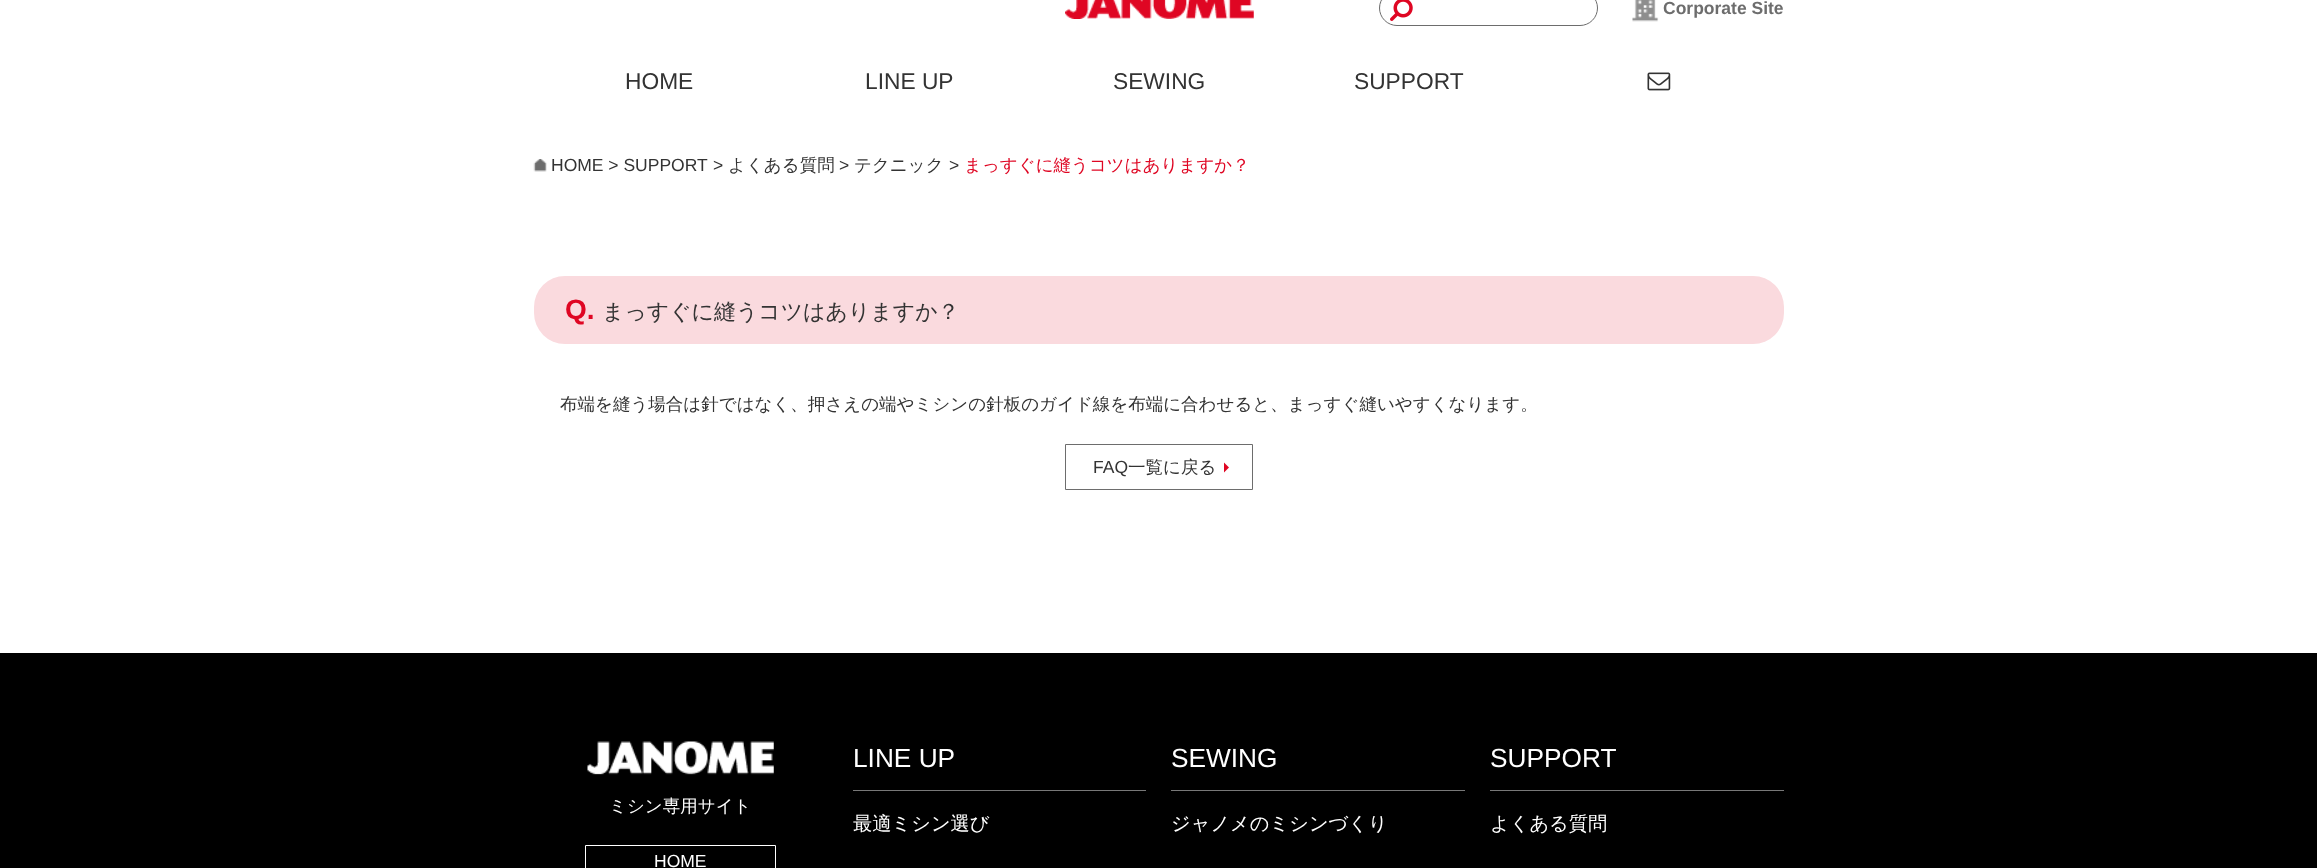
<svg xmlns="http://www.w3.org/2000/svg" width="2317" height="868">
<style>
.a{font:bold 17.5px Liberation Sans;fill:#6d6d6d}
.b{font:22.75px Liberation Sans;fill:#333}
.c{font:17.5px Liberation Sans;fill:#333}
.d{font:500 17.5px WenQuanYi Zen Hei;fill:#333}
.e{font:500 17.5px WenQuanYi Zen Hei;fill:#df0623}
.f{font:bold 28px Liberation Sans;fill:#df0623}
.g{font:500 21.9px WenQuanYi Zen Hei;fill:#333}
.h{font:500 17.5px WenQuanYi Zen Hei;fill:#fff}
.i{font:17.5px Liberation Sans;fill:#fff}
.j{font:26.25px Liberation Sans;fill:#fff}
.k{font:500 19.25px WenQuanYi Zen Hei;fill:#fff}
</style>
<rect width="100%" height="100%" fill="#fff"/>
<image href="1.png" x="1065" y="0" width="189" height="19"/>
<path fill="#ececec" d="M1397-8l186 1c7 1 12 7 13 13c-1-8-8-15-17-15h-182c-9 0-17 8-17 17v3c0-9 5-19 17-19z"/>
<rect fill="none" stroke="#6d6d6d" x="1379.5" y="-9.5" width="218" height="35" rx="17.5"/>
<image href="2.png" x="1390" y="0" width="23" height="21"/>
<image href="3.png" x="1632" y="0" width="27" height="22"/>
<image href="4.png" x="1647" y="72" width="24" height="19"/>
<image href="5.png" x="533" y="159" width="14" height="13"/>
<rect fill="#fadade" x="534" y="276" width="1250" height="68" rx="31"/>
<path fill="none" stroke="#6d6d6d" d="M1065.5 444.5h187v45H1065.5z"/>
<path fill="#df0623" d="M1224 472.5v-10l5 5z"/>
<path fill="#000" d="M0 653h2317v215H0z"/>
<image href="6.png" x="587" y="741" width="187" height="34"/>
<path fill="none" stroke="#fff" d="M585.5 845.5h190v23H585.5z"/>
<path fill="#787878" d="M853 790h293v1H853z"/>
<path fill="#787878" d="M1171 790h294v1H1171z"/>
<path fill="#787878" d="M1490 790h294v1H1490z"/>
<text class="a" x="1663" y="14">Corporate Site</text>
<text class="b" x="625" y="89">HOME</text>
<text class="b" x="865" y="89">LINE UP</text>
<text class="b" x="1113" y="89">SEWING</text>
<text class="b" x="1354" y="89">SUPPORT</text>
<text class="c" x="551" y="171">HOME &gt; SUPPORT</text>
<text class="c" x="713" y="171">&gt;</text>
<text class="d" x="728" y="171">よくある質問</text>
<text class="c" x="839" y="171">&gt;</text>
<text class="d" x="854" y="171">テクニック</text>
<text class="c" x="949" y="171">&gt;</text>
<text class="e" x="964" y="171">まっすぐに縫うコツはありますか？</text>
<text class="f" x="565" y="319">Q.</text>
<text class="g" x="602" y="319">まっすぐに縫うコツはありますか？</text>
<text class="d" x="560" y="410">布端を縫う場合は針ではなく、押さえの端やミシンの針板のガイド線を布端に合わせると、まっすぐ縫いやすくなります。</text>
<text class="c" x="1093" y="473">FAQ</text>
<text class="d" x="1128" y="473">一覧に戻る</text>
<text class="h" x="609" y="812">ミシン専用サイト</text>
<text class="i" x="654" y="867">HOME</text>
<text class="j" x="853" y="767">LINE UP</text>
<text class="k" x="853" y="830">最適ミシン選び</text>
<text class="j" x="1171" y="767">SEWING</text>
<text class="k" x="1171" y="830">ジャノメのミシンづくり</text>
<text class="j" x="1490" y="767">SUPPORT</text>
<text class="k" x="1490" y="830">よくある質問</text>
</svg>
